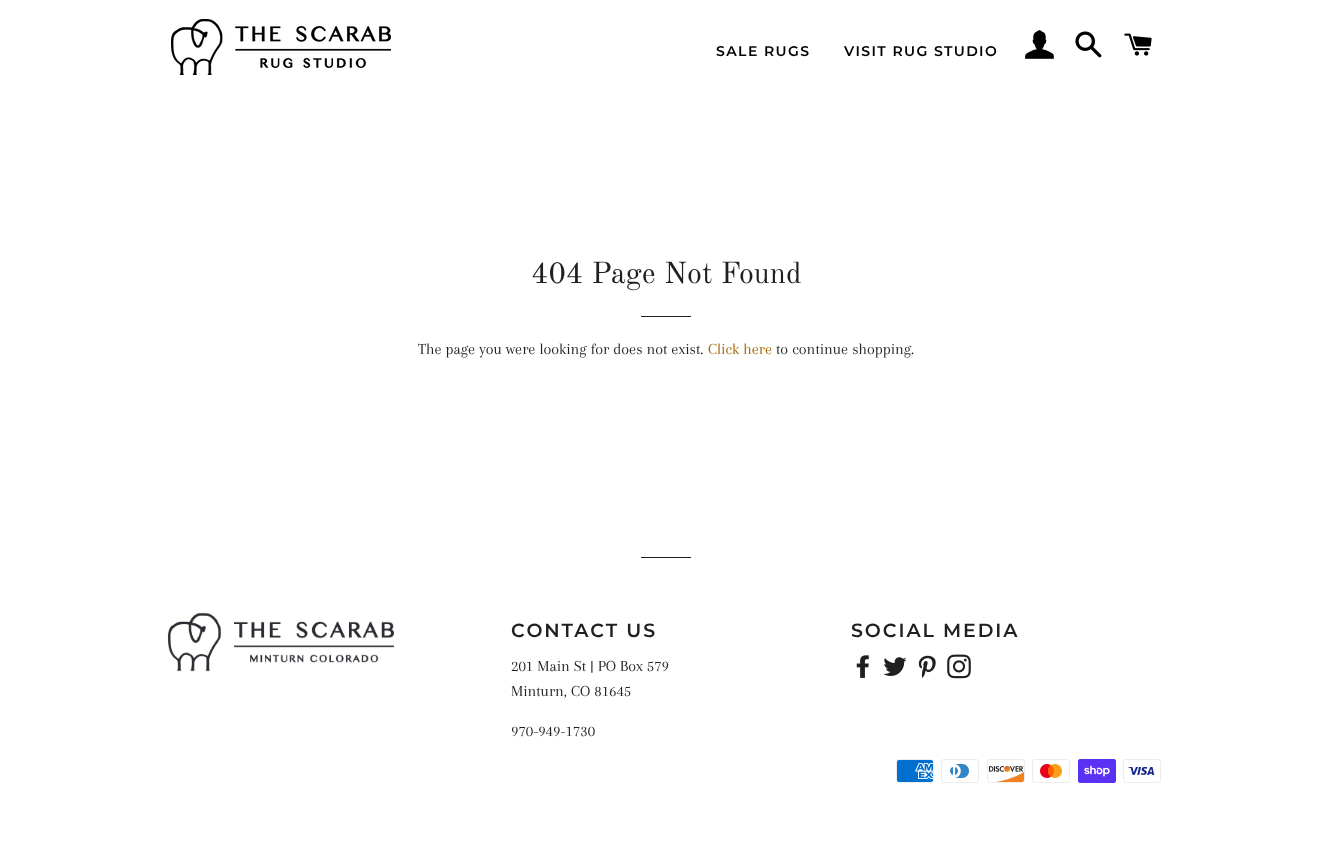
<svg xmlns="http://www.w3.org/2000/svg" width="1332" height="849">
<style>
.a{font:600 14px Montserrat;letter-spacing:1.4px;fill:#000}
.b{font:30px Old Standard TT;fill:#1f2021}
.c{font:16px Arapey;fill:#1f2021}
.d{font:16px Arapey;fill:#a56600}
.e{font:600 19px Montserrat;letter-spacing:1.9px;fill:#1f2021}
</style>
<rect width="100%" height="100%" fill="#fff"/>
<image href="1.png" x="171" y="19" width="220" height="56"/>
<image href="2.png" x="1025" y="30" width="29" height="29"/>
<image href="3.png" x="1075" y="31" width="27" height="27"/>
<image href="4.png" x="1124" y="33" width="28" height="23"/>
<path fill="#1f2021" d="M641 316h50v1H641z"/>
<path fill="#1f2021" d="M641 557h50v1H641z"/>
<image href="5.png" x="167" y="612" width="228" height="60"/>
<image href="6.png" x="856" y="655" width="13" height="23"/>
<image href="7.png" x="883" y="657" width="24" height="19"/>
<image href="8.png" x="918" y="655" width="18" height="23"/>
<image href="9.png" x="947" y="654" width="24" height="25"/>
<image href="10.png" x="896" y="759" width="38" height="24"/>
<image href="11.png" x="941" y="759" width="38" height="24"/>
<image href="12.png" x="987" y="759" width="38" height="24"/>
<image href="13.png" x="1032" y="759" width="38" height="24"/>
<image href="14.png" x="1078" y="759" width="38" height="24"/>
<image href="15.png" x="1123" y="759" width="38" height="24"/>
<text class="a" x="716" y="56">SALE RUGS</text>
<text class="a" x="844" y="56">VISIT RUG STUDIO</text>
<text class="b" x="531" y="283">404 Page Not Found</text>
<text class="c" x="418" y="354">The page you were looking for does not exist.</text>
<text class="d" x="708" y="354">Click here</text>
<text class="c" x="776" y="354">to continue shopping.</text>
<text class="e" x="511" y="637">CONTACT US</text>
<text class="c" x="511" y="671">201 Main St | PO Box 579</text>
<text class="c" x="511" y="696">Minturn, CO 81645</text>
<text class="c" x="511" y="736">970-949-1730</text>
<text class="e" x="851" y="637">SOCIAL MEDIA</text>
</svg>
